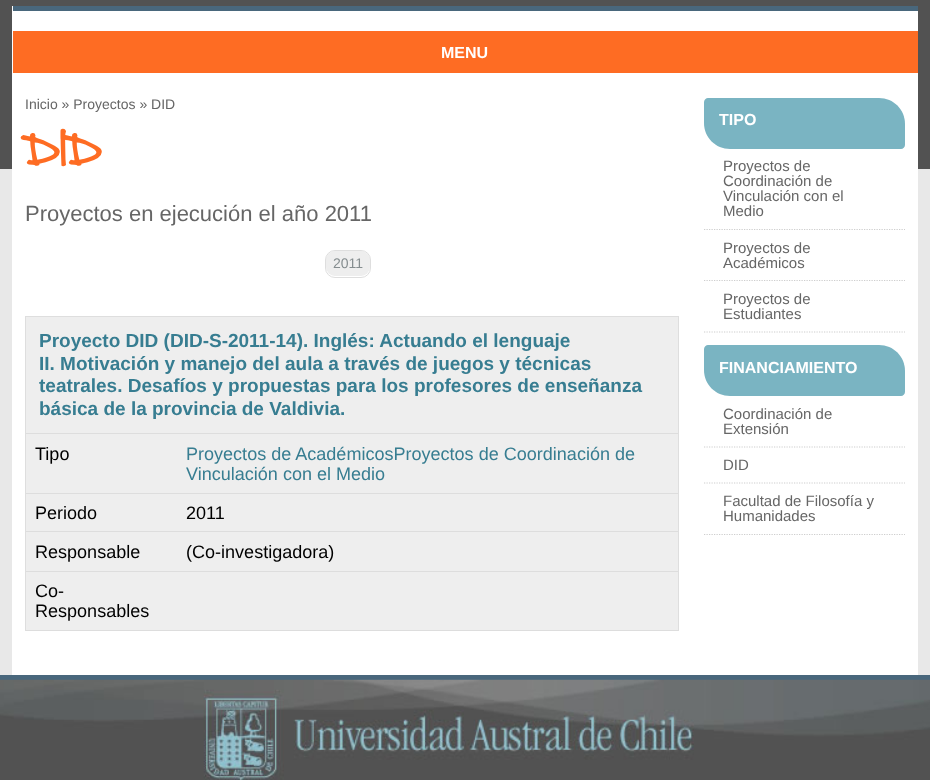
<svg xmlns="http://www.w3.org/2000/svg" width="930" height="780">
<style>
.a{font:bold 16px Liberation Sans;fill:#fff}
.b{font:14px Liberation Sans;fill:#666}
.c{font:36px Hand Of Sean;fill:#fe6c23}
.d{font:22px Liberation Sans;fill:#666}
.e{font:14px Liberation Sans;fill:#858d8f}
.f{font:bold 19px Liberation Sans;fill:#377d91}
.g{font:18.05px Liberation Sans;fill:#000}
.h{font:18.05px Liberation Sans;fill:#377d91}
.i{font:15px Liberation Sans;fill:#666}
</style>
<rect width="100%" height="100%" fill="#e8e8e8"/>
<path fill="#525252" d="M0 0h930v169H0z"/>
<path fill="#fff" d="M12 6h906v669H12z"/>
<path fill="#49677c" d="M13 6h905v5H13z"/>
<path fill="#fe6c23" d="M13 31h905v42H13z"/>
<rect fill="#eee" x="326" y="251" width="44" height="25" rx="9"/>
<rect fill="none" stroke="#dedede" x="325.5" y="250.5" width="45" height="27" rx="9.5"/>
<path fill="#eee" d="M26 317h652v313H26z"/>
<path fill="#dedede" d="M25 316h654v1H25z"/>
<path fill="#dedede" d="M678 316h1v315H678z"/>
<path fill="#dedede" d="M25 316h1v315H25z"/>
<path fill="#ddd" d="M26 433h652v1H26z"/>
<path fill="#ddd" d="M26 493h652v1H26z"/>
<path fill="#ddd" d="M26 531h652v1H26z"/>
<path fill="#ddd" d="M26 571h652v1H26z"/>
<path fill="#ddd" d="M26 630h652v1H26z"/>
<path fill="#7ab4c2" d="M708 98h171c14.5 0 26 11.5 26 26v21c0 2-2 4-4 4h-171c-14.5 0-26-11.5-26-26v-21c0-2 2-4 4-4z"/>
<path fill="none" stroke="#cecece" stroke-width="1.2" stroke-dasharray="1.25 1.25" d="M704 229.5h201"/>
<path fill="none" stroke="#cecece" stroke-width="1.2" stroke-dasharray="1.25 1.25" d="M704 280.5h201"/>
<path fill="none" stroke="#cecece" stroke-width="1.2" stroke-dasharray="1.25 1.25" d="M704 332h201"/>
<path fill="#7ab4c2" d="M708 345h171c14.5 0 26 11.5 26 26v21c0 2-2 4-4 4h-171c-14.5 0-26-11.5-26-26v-21c0-2 2-4 4-4z"/>
<path fill="none" stroke="#cecece" stroke-width="1.2" stroke-dasharray="1.25 1.25" d="M704 447h201"/>
<path fill="none" stroke="#cecece" stroke-width="1.2" stroke-dasharray="1.25 1.25" d="M704 483h201"/>
<path fill="none" stroke="#cecece" stroke-width="1.2" stroke-dasharray="1.25 1.25" d="M704 534.5h201"/>
<path fill="#49677c" d="M0 675h930v5H0z"/>
<image href="1.png" x="0" y="679" width="930" height="101"/>
<text class="a" x="441" y="58">MENU</text>
<text class="b" x="25" y="109">Inicio » Proyectos » DID</text>
<text class="c" x="25" y="164">DID</text>
<text class="d" x="25" y="221">Proyectos en ejecución el año 2011</text>
<text class="e" x="333" y="268">2011</text>
<text class="f" x="39" y="347">Proyecto DID (DID-S-2011-14). Inglés: Actuando el lenguaje</text>
<text class="f" x="39" y="370">II. Motivación y manejo del aula a través de juegos y técnicas</text>
<text class="f" x="39" y="392">teatrales. Desafíos y propuestas para los profesores de enseñanza</text>
<text class="f" x="39" y="415">básica de la provincia de Valdivia.</text>
<text class="g" x="35" y="460">Tipo</text>
<text class="h" x="186" y="460">Proyectos de AcadémicosProyectos de Coordinación de</text>
<text class="h" x="186" y="480">Vinculación con el Medio</text>
<text class="g" x="35" y="519">Periodo</text>
<text class="g" x="186" y="519">2011</text>
<text class="g" x="35" y="558">Responsable</text>
<text class="g" x="186" y="558">(Co-investigadora)</text>
<text class="g" x="35" y="597">Co-</text>
<text class="g" x="35" y="617">Responsables</text>
<text class="a" x="719" y="125">TIPO</text>
<text class="i" x="723" y="171">Proyectos de</text>
<text class="i" x="723" y="186">Coordinación de</text>
<text class="i" x="723" y="201">Vinculación con el</text>
<text class="i" x="723" y="216">Medio</text>
<text class="i" x="723" y="253">Proyectos de</text>
<text class="i" x="723" y="268">Académicos</text>
<text class="i" x="723" y="304">Proyectos de</text>
<text class="i" x="723" y="319">Estudiantes</text>
<text class="a" x="719" y="373">FINANCIAMIENTO</text>
<text class="i" x="723" y="419">Coordinación de</text>
<text class="i" x="723" y="434">Extensión</text>
<text class="i" x="723" y="470">DID</text>
<text class="i" x="723" y="506">Facultad de Filosofía y</text>
<text class="i" x="723" y="521">Humanidades</text>
</svg>
